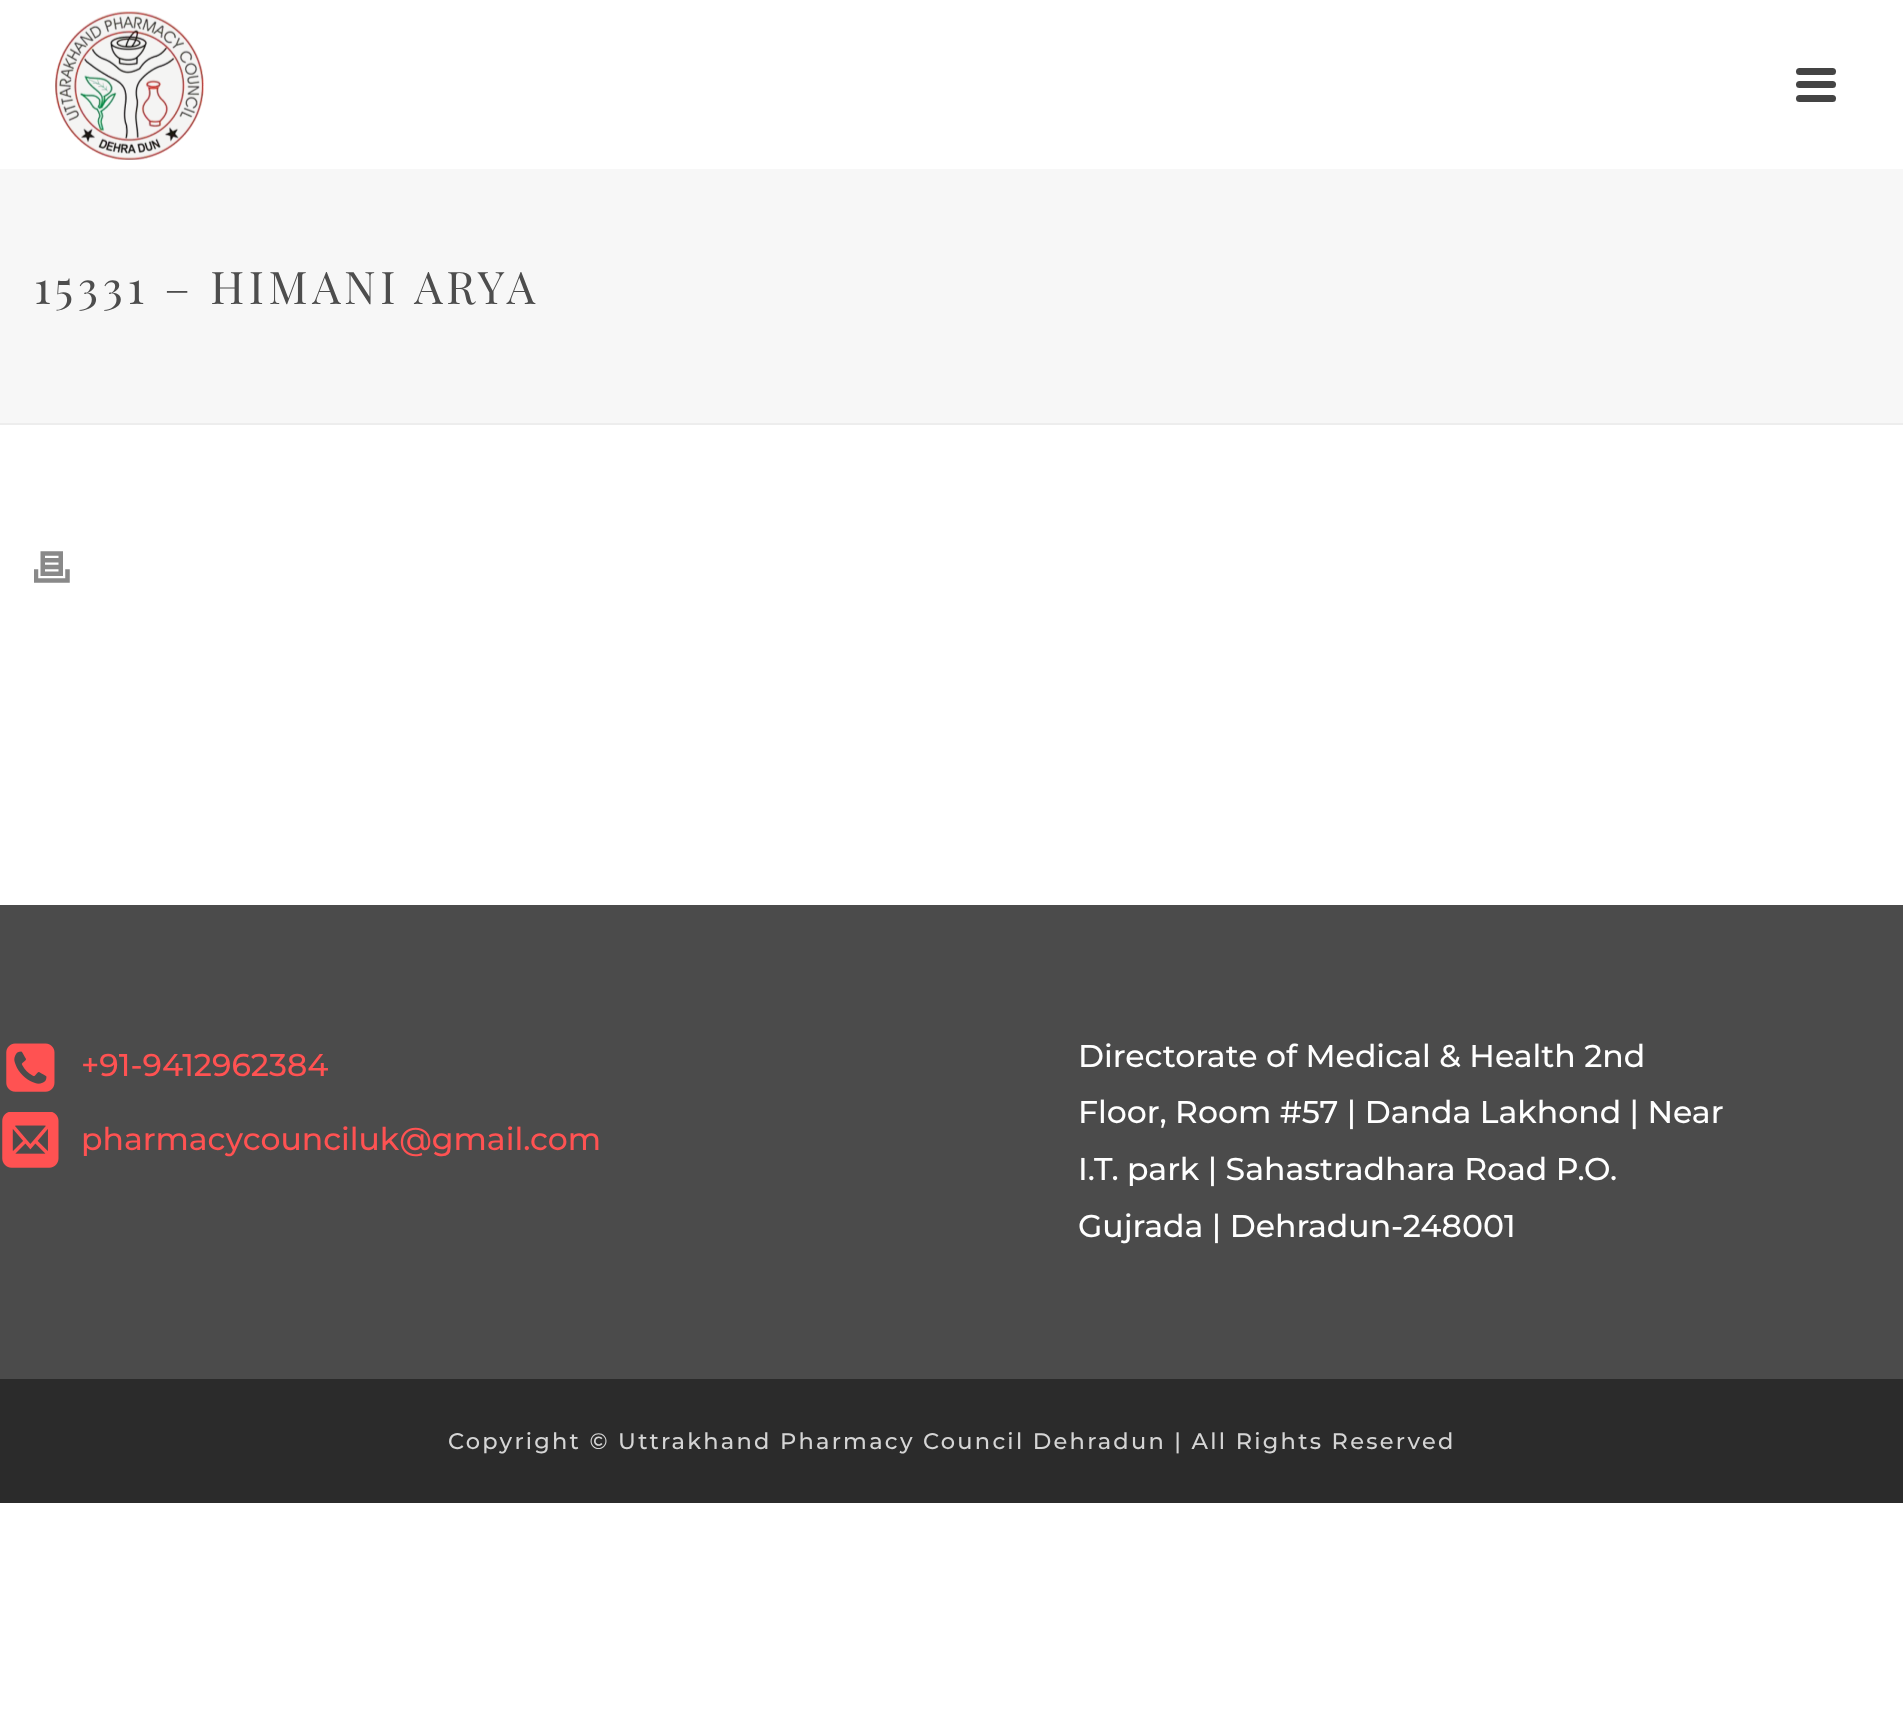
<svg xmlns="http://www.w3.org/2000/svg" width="1903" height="1710">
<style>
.a{font:45px Playfair Display;letter-spacing:4.5px;fill:#4d4d4d}
.b{font:500 31.5px Montserrat;fill:#ff5252}
.c{font:500 31.5px Montserrat;fill:#fff}
.d{font:500 22.5px Montserrat;letter-spacing:2.25px;fill:#d5d5d5}
</style>
<rect width="100%" height="100%" fill="#fff"/>
<path fill="#f7f7f7" d="M0 169h1903v254H0z"/>
<path fill="#ededed" d="M0 423h1903v2H0z"/>
<image href="1.png" x="55" y="11" width="149" height="149"/>
<rect fill="#444" x="1796" y="68" width="40" height="7" rx="3.5"/>
<rect fill="#444" x="1796" y="81" width="40" height="7" rx="3.5"/>
<rect fill="#444" x="1796" y="95" width="40" height="7" rx="3.5"/>
<image href="2.png" x="34" y="551" width="36" height="32"/>
<path fill="#4b4b4b" d="M0 905h1903v474H0z"/>
<image href="3.png" x="6" y="1043" width="49" height="49"/>
<image href="4.png" x="2" y="1112" width="57" height="56"/>
<path fill="#2b2b2b" d="M0 1379h1903v124H0z"/>
<text class="a" x="34" y="304">15331 – HIMANI ARYA</text>
<text class="b" x="81" y="1076">+91-9412962384</text>
<text class="b" x="81" y="1150">pharmacycounciluk@gmail.com</text>
<text class="c" x="1078" y="1067">Directorate of Medical &amp; Health 2nd</text>
<text class="c" x="1078" y="1123">Floor, Room #57 | Danda Lakhond | Near</text>
<text class="c" x="1078" y="1180">I.T. park | Sahastradhara Road P.O.</text>
<text class="c" x="1078" y="1237">Gujrada | Dehradun-248001</text>
<text class="d" x="448" y="1449">Copyright © Uttrakhand Pharmacy Council Dehradun | All Rights Reserved</text>
</svg>
